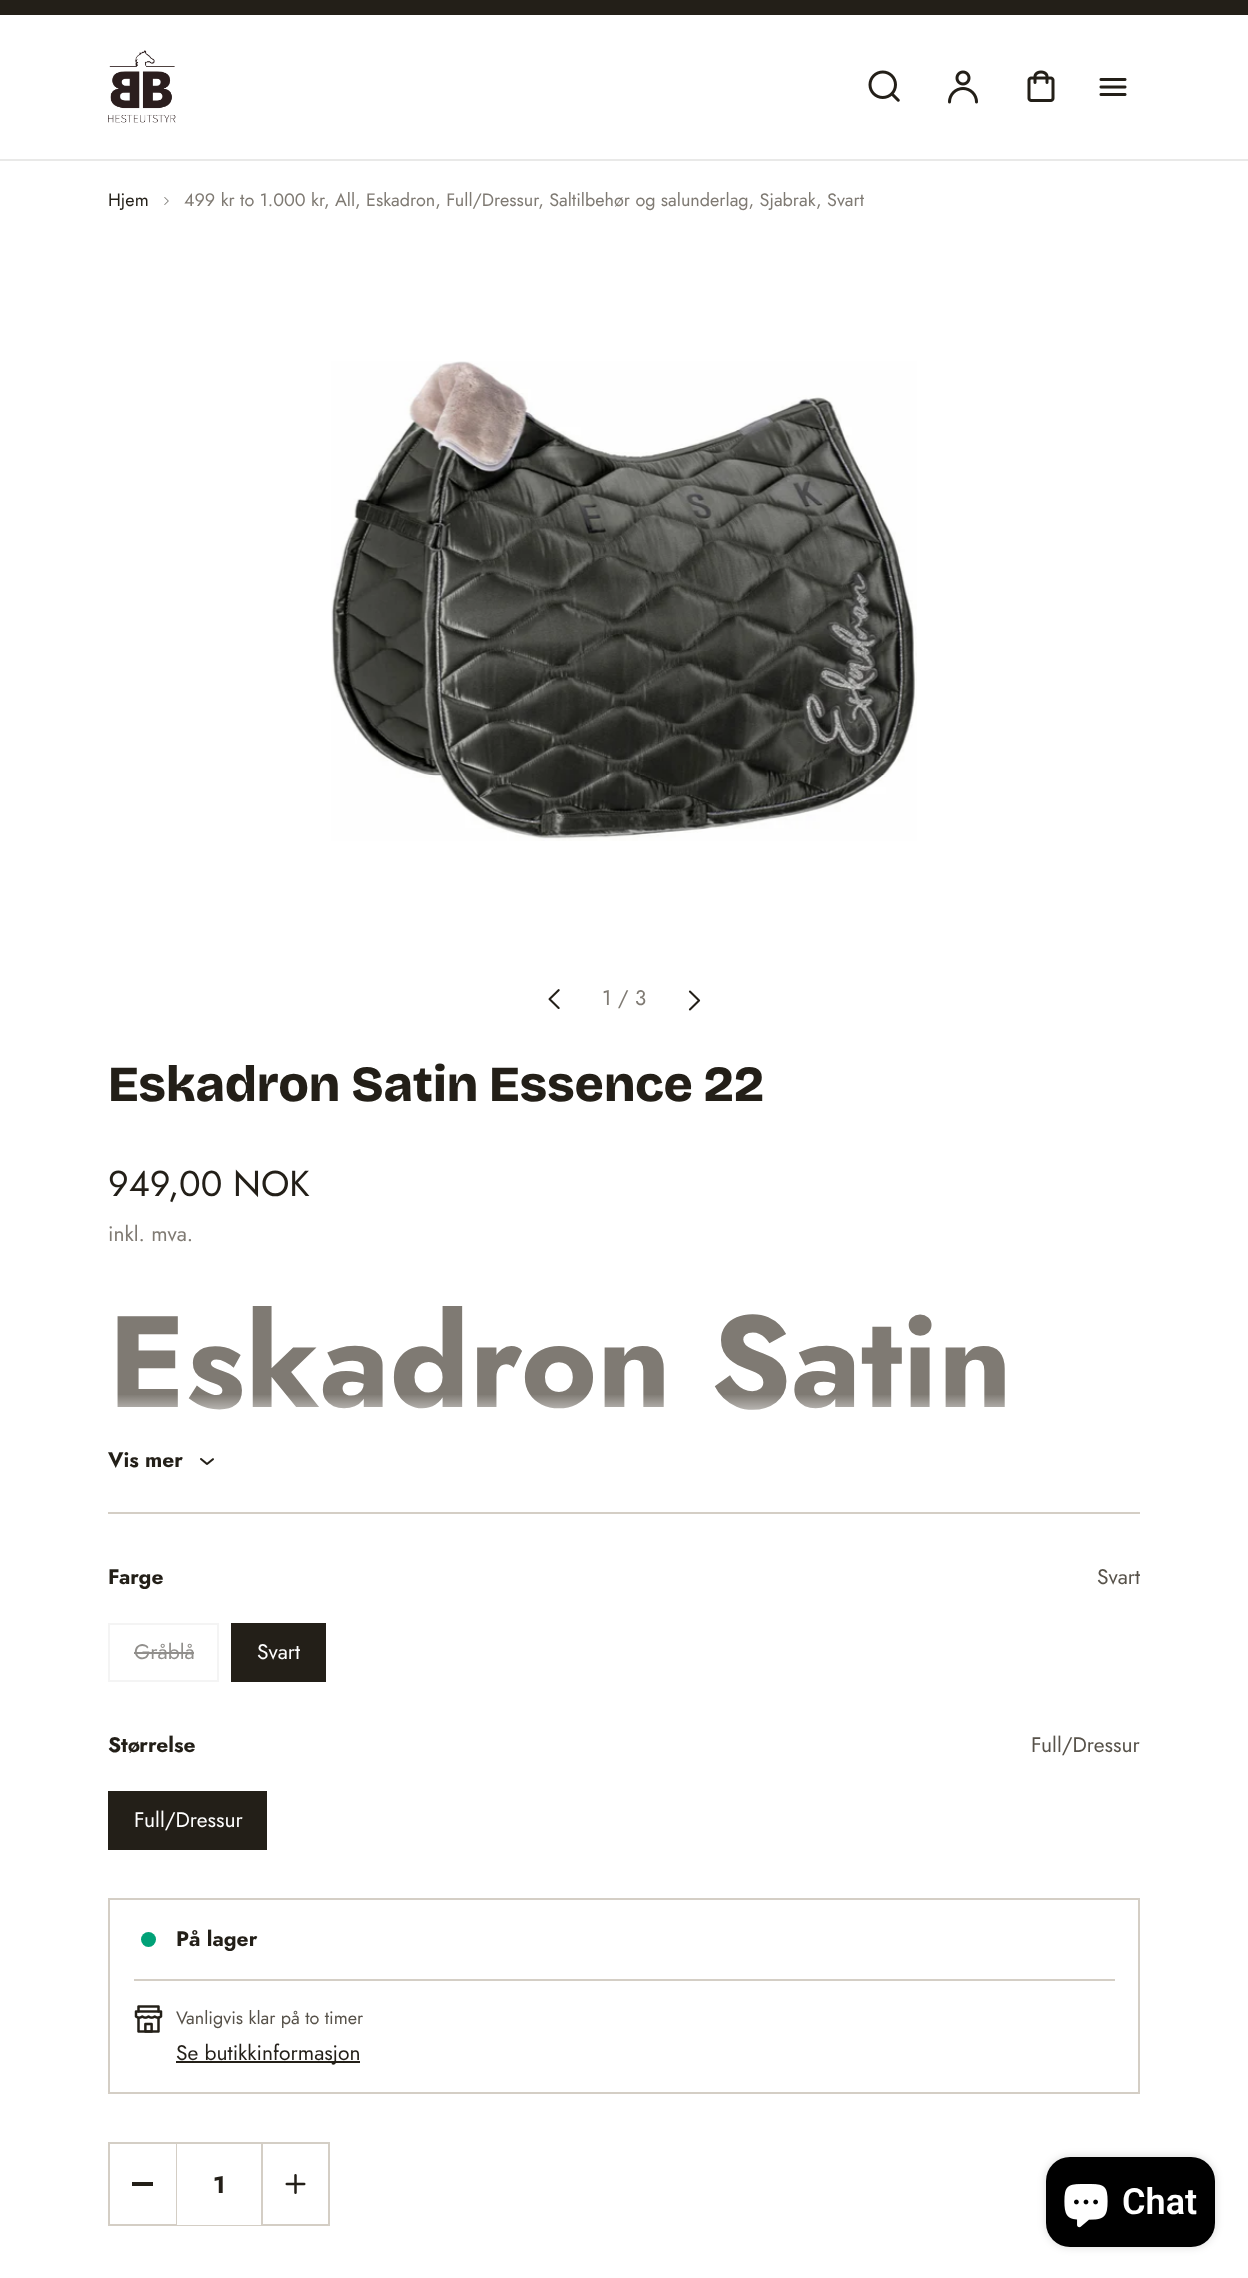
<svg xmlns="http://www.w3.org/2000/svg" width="1248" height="2278">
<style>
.a{font:18px Jost;fill:#231f18}
.b{font:18px Jost;fill:#7f7a73}
.c{font:21px Jost;fill:#7f7a73}
.d{font:800 50.4px Bricolage Grotesque;fill:#231f18}
.e{font:36px Jost;fill:#231f18}
.f{font:bold 129.5px Jost;fill:#7f7a73}
.g{font:bold 21px Jost;fill:#231f18}
.h{font:21px Jost;fill:#57524a}
.i{font:21px Jost;fill:#918f8c}
.j{font:21px Jost;fill:#fff}
.k{font:18px Jost;fill:#57524a}
.l{font:21px Jost;fill:#231f18}
.m{font:bold 24px Jost;fill:#231f18}
.n{font:600 36px Roboto;fill:#fff}
</style>
<defs>
<linearGradient id="g1" gradientUnits="userSpaceOnUse" x1="624" y1="1430" x2="624" y2="1394"><stop offset="0" stop-color="#fff"/><stop offset="1" stop-color="#fff" stop-opacity="0"/></linearGradient>
</defs>
<rect width="100%" height="100%" fill="#fff"/>
<path fill="#231f18" d="M0 0h1248v15H0z"/>
<path fill="#e9e9e8" d="M0 159h1248v2H0z"/>
<image href="1.png" x="108" y="50" width="68" height="73"/>
<image href="2.png" x="868" y="70" width="32" height="32"/>
<image href="3.png" x="948" y="70" width="30" height="34"/>
<image href="4.png" x="1027" y="70" width="28" height="32"/>
<image href="5.png" x="1099" y="78" width="28" height="18"/>
<image href="6.png" x="164" y="197" width="5" height="8"/>
<image href="7.png" x="331" y="361" width="586" height="480"/>
<image href="8.png" x="548" y="989" width="12" height="20"/>
<image href="9.png" x="688" y="990" width="13" height="21"/>
<path fill="#d4cec5" d="M108 1512h1032v2H108z"/>
<image href="10.png" x="200" y="1458" width="14" height="7"/>
<path fill="none" stroke="#f4f4f4" stroke-width="2" d="M109 1624h109v57H109z"/>
<path fill="#918f8c" d="M134 1652h60v2H134z"/>
<path fill="#231f18" d="M231 1623h95v59H231z"/>
<path fill="#231f18" d="M108 1791h159v59H108z"/>
<path fill="none" stroke="#d4cec5" stroke-width="2" d="M109 1899h1030v194H109z"/>
<circle fill="#00a177" cx="148.5" cy="1939.5" r="7.5"/>
<path fill="#d4cec5" d="M134 1979h981v2H134z"/>
<image href="11.png" x="134" y="2005" width="29" height="28"/>
<path fill="#231f18" d="M176 2061h184v2H176z"/>
<path fill="none" stroke="#d4cec5" stroke-width="2" d="M109 2143h220v82H109z"/>
<path fill="#d4cec5" d="M176 2144h1v81H176z"/>
<path fill="#231f18" d="M132 2182h21v4H132z"/>
<path fill="#fff" d="M177 2224h84v1H177z"/>
<path fill="#d4cec5" d="M261 2144h2v81H261z"/>
<image href="12.png" x="285" y="2174" width="21" height="20"/>
<rect fill="#00000026" filter="blur(4px)" x="1046" y="2157" width="169" height="90" rx="24"/>
<rect fill="#000" x="1046" y="2157" width="169" height="90" rx="24"/>
<image href="13.png" x="1064" y="2184" width="44" height="44"/>
<text class="a" x="108" y="206">Hjem</text>
<text class="b" x="184" y="206">499 kr to 1.000 kr, All, Eskadron, Full/Dressur, Saltilbehør og salunderlag, Sjabrak, Svart</text>
<text class="c" x="602" y="1005">1 / 3</text>
<text class="d" x="108" y="1101">Eskadron Satin Essence 22</text>
<text class="e" x="108" y="1196">949,00 NOK</text>
<text class="c" x="108" y="1241">inkl. mva.</text>
<text class="f" x="108" y="1407">Eskadron Satin</text>
<path fill="url(#g1)" d="M117 1395h889v15H117z"/>
<text class="g" x="108" y="1467">Vis mer</text>
<text class="g" x="108" y="1584">Farge</text>
<text class="h" x="1097" y="1584">Svart</text>
<text class="i" x="134" y="1659">Gråblå</text>
<text class="j" x="257" y="1659">Svart</text>
<text class="g" x="108" y="1752">Størrelse</text>
<text class="h" x="1031" y="1752">Full/Dressur</text>
<text class="j" x="134" y="1827">Full/Dressur</text>
<text class="g" x="176" y="1946">På lager</text>
<text class="k" x="176" y="2024">Vanligvis klar på to timer</text>
<text class="l" x="176" y="2060">Se butikkinformasjon</text>
<text class="m" x="213" y="2193">1</text>
<text class="n" x="1122" y="2214">Chat</text>
</svg>
